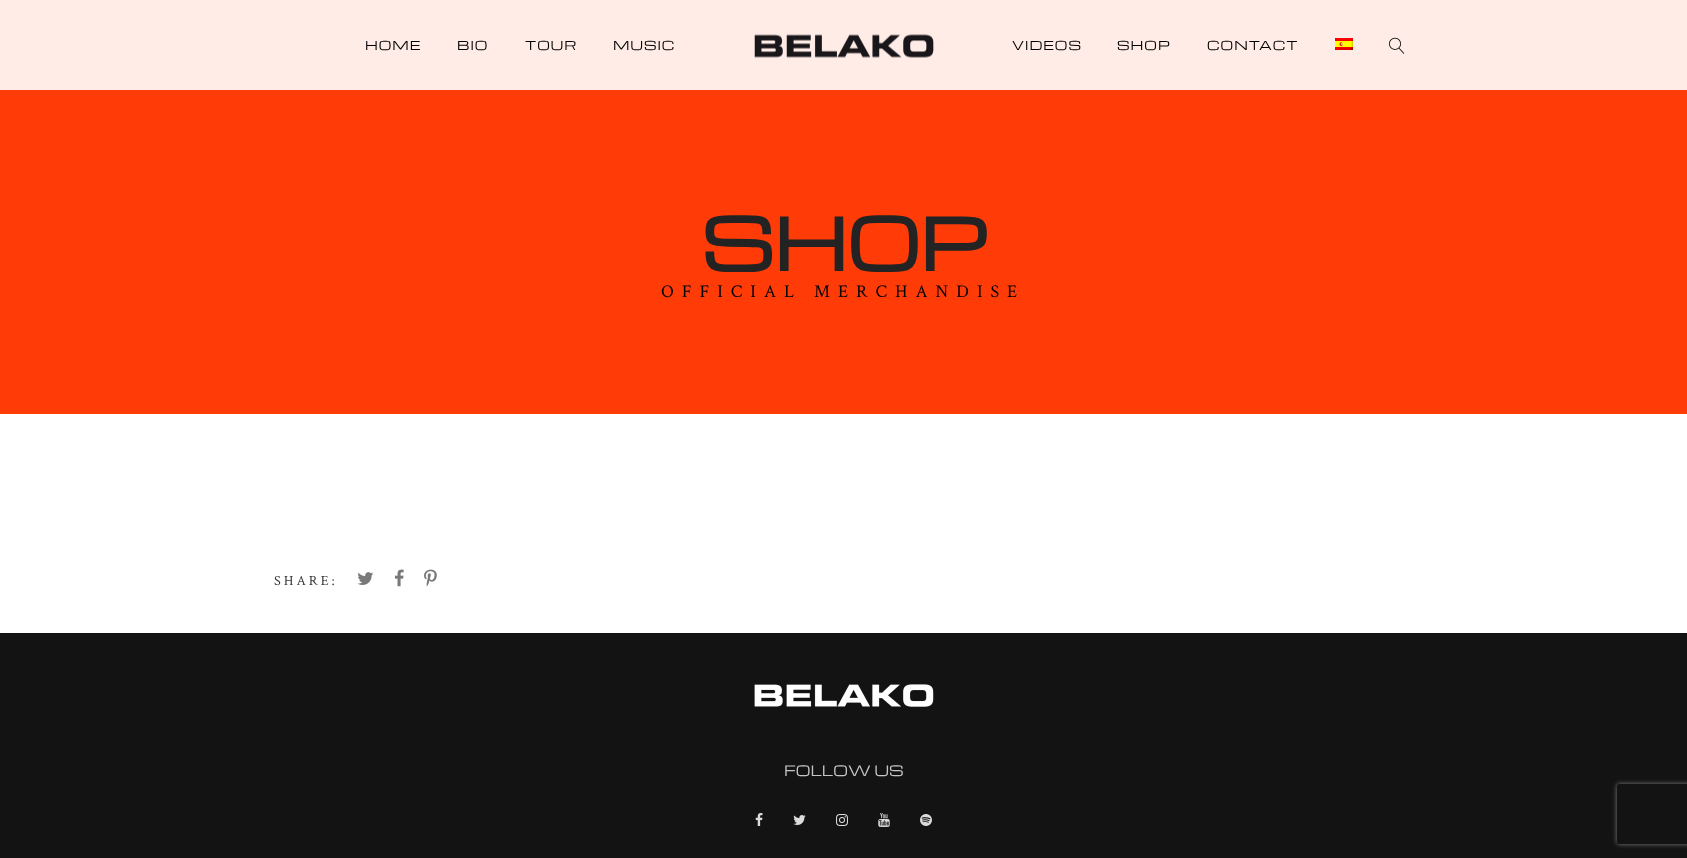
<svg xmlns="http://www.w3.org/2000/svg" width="1687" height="858">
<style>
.a{font:12px Michroma;letter-spacing:1px;fill:#000}
.b{font:bold 70px Michroma;letter-spacing:-1px;fill:#232323}
.c{font:18px Crimson Text;letter-spacing:8px;fill:#000}
.d{font:14px Crimson Text;letter-spacing:3px;fill:#383838}
.e{font:14px Michroma;fill:#c5c5c5}
</style>
<defs>
<clipPath id="clip1"><path d="M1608 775h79v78h-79zm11 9h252c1 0 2 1 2 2v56c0 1-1 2-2 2h-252c-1 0-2-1-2-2v-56c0-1 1-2 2-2z" clip-rule="evenodd"/></clipPath>
</defs>
<rect width="100%" height="100%" fill="#fff"/>
<path fill="#ffece6" d="M0 0h1687v90H0z"/>
<image href="1.png" x="754" y="34" width="180" height="24"/>
<image href="2.png" x="1335" y="38" width="18" height="12"/>
<image href="3.png" x="1389" y="37" width="16" height="17"/>
<path fill="#ff3c08" d="M0 90h1687v324H0z"/>
<image href="4.png" x="357" y="572" width="17" height="13"/>
<image href="5.png" x="394" y="569" width="10" height="18"/>
<image href="6.png" x="424" y="569" width="13" height="18"/>
<path fill="#131313" d="M0 633h1687v225H0z"/>
<image href="7.png" x="754" y="684" width="180" height="23"/>
<image href="8.png" x="755" y="813" width="8" height="13"/>
<image href="9.png" x="793" y="815" width="13" height="10"/>
<image href="10.png" x="836" y="814" width="12" height="12"/>
<image href="11.png" x="878" y="813" width="12" height="14"/>
<image href="12.png" x="920" y="814" width="12" height="12"/>
<g clip-path="url(#clip1)">
<rect fill="#808080" filter="blur(2.5px)" x="1617" y="784" width="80" height="60" rx="2"/>
</g>
<text class="a" x="365" y="50">HOME</text>
<text class="a" x="457" y="50">BIO</text>
<text class="a" x="525" y="50">TOUR</text>
<text class="a" x="613" y="50">MUSIC</text>
<text class="a" x="1012" y="50">VIDEOS</text>
<text class="a" x="1117" y="50">SHOP</text>
<text class="a" x="1207" y="50">CONTACT</text>
<text class="b" x="701" y="271">SHOP</text>
<text class="c" x="661" y="297">OFFICIAL MERCHANDISE</text>
<text class="d" x="274" y="585">SHARE:</text>
<text class="e" x="784" y="776">FOLLOW US</text>
</svg>
